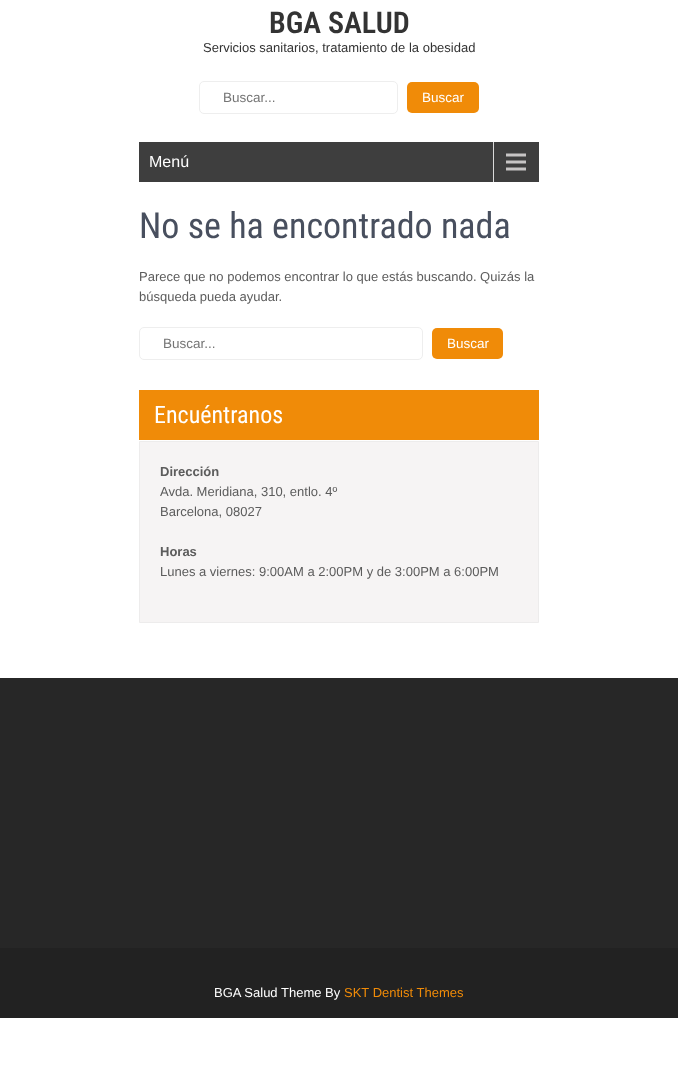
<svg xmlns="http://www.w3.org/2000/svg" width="678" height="1068">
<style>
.a{font:600 30px Roboto Condensed;fill:#333}
.b{font:13px Liberation Sans;fill:#333}
.c{font:13.5px Liberation Sans;fill:#757575}
.d{font:13.5px Liberation Sans;fill:#fff}
.e{font:16px Liberation Sans;fill:#fff}
.f{font:36px Roboto Condensed;fill:#484f5e}
.g{font:13px Liberation Sans;fill:#5c5c5c}
.h{font:24px Roboto Condensed;fill:#fff}
.i{font:bold 13px Liberation Sans;fill:#5c5c5c}
.j{font:13px Liberation Sans;fill:#fff}
.k{font:13px Liberation Sans;fill:#f08b08}
</style>
<rect width="100%" height="100%" fill="#fff"/>
<rect fill="none" stroke="#eee" x="199.5" y="81.5" width="198" height="32" rx="4.5"/>
<rect fill="#f08b08" x="407" y="82" width="72" height="31" rx="5"/>
<path fill="#3e3e3e" d="M139 142h400v40H139z"/>
<image href="1.png" x="493" y="142" width="33" height="40"/>
<rect fill="none" stroke="#eee" x="139.5" y="327.5" width="283" height="32" rx="4.5"/>
<rect fill="#f08b08" x="432" y="328" width="71" height="31" rx="5"/>
<path fill="#f08b08" d="M139 390h400v50H139z"/>
<path fill="#f6f4f4" stroke="#edecec" d="M139.5 441.5h399v181H139.5z"/>
<path fill="#272727" d="M0 678h678v270H0z"/>
<path fill="#222" d="M0 948h678v70H0z"/>
<text class="a" x="269" y="33">BGA SALUD</text>
<text class="b" x="203" y="52">Servicios sanitarios, tratamiento de la obesidad</text>
<text class="c" x="223" y="102">Buscar...</text>
<text class="d" x="422" y="102">Buscar</text>
<text class="e" x="149" y="167">Menú</text>
<text class="f" x="139" y="238">No se ha encontrado nada</text>
<text class="g" x="139" y="281">Parece que no podemos encontrar lo que estás buscando. Quizás la</text>
<text class="g" x="139" y="301">búsqueda pueda ayudar.</text>
<text class="c" x="163" y="348">Buscar...</text>
<text class="d" x="447" y="348">Buscar</text>
<text class="h" x="154" y="423">Encuéntranos</text>
<text class="i" x="160" y="476">Dirección</text>
<text class="g" x="160" y="496">Avda. Meridiana, 310, entlo. 4º</text>
<text class="g" x="160" y="516">Barcelona, 08027</text>
<text class="i" x="160" y="556">Horas</text>
<text class="g" x="160" y="576">Lunes a viernes: 9:00AM a 2:00PM y de 3:00PM a 6:00PM</text>
<text class="j" x="214" y="997">BGA Salud Theme By</text>
<text class="k" x="344" y="997">SKT Dentist Themes</text>
</svg>
